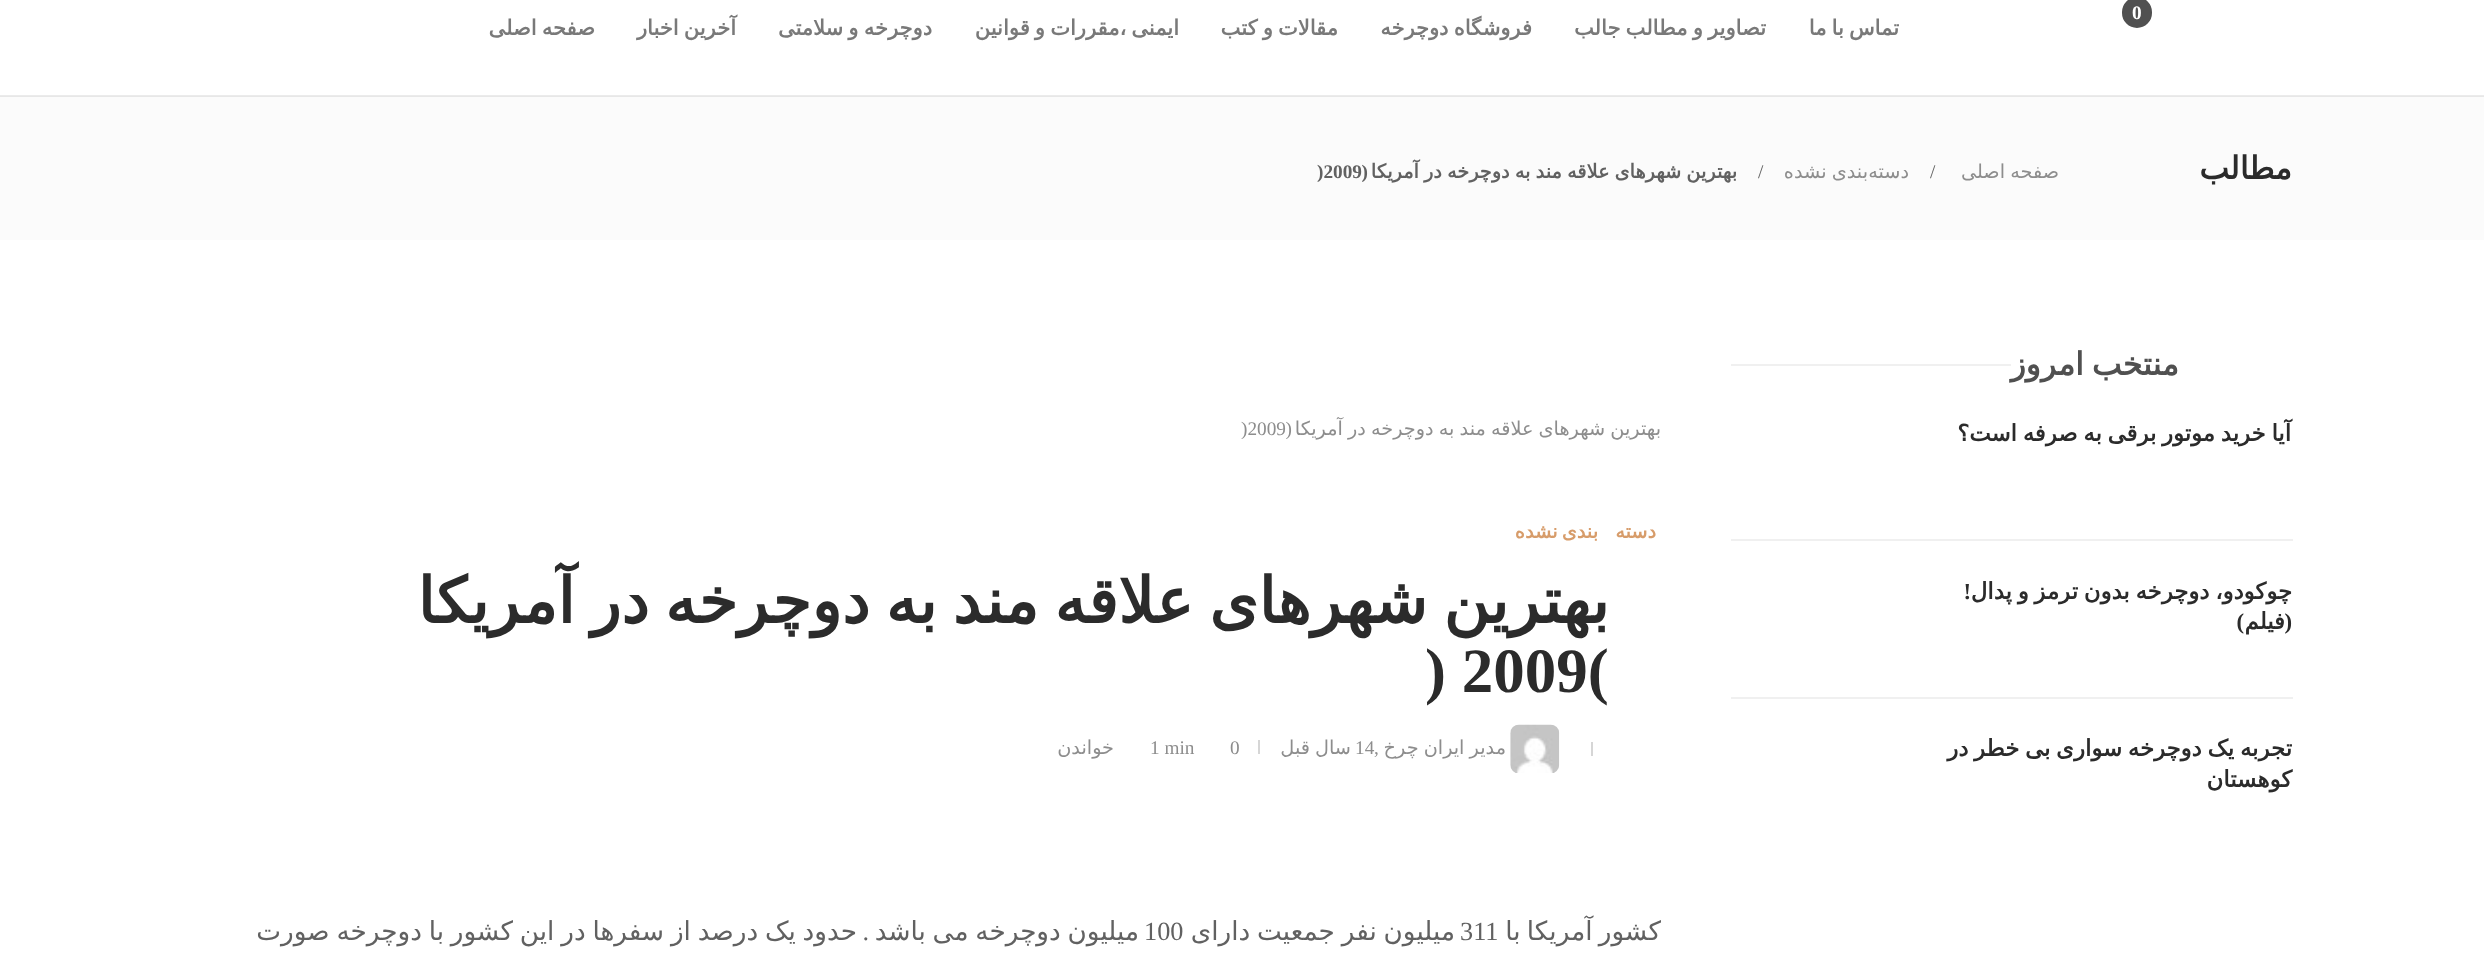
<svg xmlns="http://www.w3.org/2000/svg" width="2484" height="961">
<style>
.a{font:bold 19.25px Liberation Serif;fill:#fff}
.b{font:bold 21px DejaVu Sans;direction:rtl;fill:#797979}
.c{font:bold 31.5px DejaVu Sans;direction:rtl;fill:#2b2b2b}
.d{font:19.25px DejaVu Sans;direction:rtl;fill:#8d8d8d}
.e{font:19.25px Liberation Serif;fill:#616161}
.f{font:bold 19.25px DejaVu Sans;direction:rtl;fill:#616161}
.g{font:bold 19.25px Liberation Serif;direction:rtl;fill:#616161}
.h{font:bold 19.25px Liberation Serif;fill:#616161}
.i{font:bold 31.5px DejaVu Sans;direction:rtl;fill:#505050}
.j{font:bold 22.75px DejaVu Sans;direction:rtl;fill:#2b2b2b}
.k{font:bold 22.75px Liberation Serif;direction:rtl;fill:#2b2b2b}
.l{font:19.25px Liberation Serif;direction:rtl;fill:#8d8d8d}
.m{font:19.25px Liberation Serif;fill:#8d8d8d}
.n{font:bold 19.25px DejaVu Sans;letter-spacing:3.5px;direction:rtl;fill:#d79c6a}
.o{font:bold 63px DejaVu Sans;direction:rtl;fill:#2b2b2b}
.p{font:bold 63px Liberation Serif;fill:#2b2b2b}
.q{font:26.25px DejaVu Sans;direction:rtl;fill:#616161}
.r{font:26.25px Liberation Serif;fill:#616161}
.s{font:26.25px Liberation Serif;direction:rtl;fill:#616161}
</style>
<rect width="100%" height="100%" fill="#fff"/>
<path fill="#ebebeb" d="M0 95h2484v1H0z"/>
<rect fill="#505050" stroke="#fff" stroke-width="4" x="2120" y="-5" width="34" height="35" rx="17"/>
<path fill="#fbfbfb" d="M0 97h2484v143H0z"/>
<path fill="#e7e7e7" d="M0 96h2484v1H0z"/>
<path fill="#f0f0f0" d="M1731 539h562v2H1731z"/>
<path fill="#f0f0f0" d="M1731 697h562v2H1731z"/>
<path fill="#d6d6d6" d="M1591 742h2v14H1591z"/>
<image href="1.png" x="1510" y="724" width="50" height="49"/>
<path fill="#d6d6d6" d="M1258 740h2v14H1258z"/>
<text class="a" x="2132" y="19">0</text>
<text class="b" x="1899" y="35" word-spacing="-1.5">تماس با ما</text>
<text class="b" x="1766" y="35" word-spacing="-1.5">تصاویر و مطالب جالب</text>
<text class="b" x="1532" y="35" word-spacing="-1.5">فروشگاه دوچرخه</text>
<text class="b" x="1338" y="35" word-spacing="-1.5">مقالات و کتب</text>
<text class="b" x="1179" y="35" word-spacing="-1.5">ایمنی ،مقررات و قوانین</text>
<text class="b" x="932" y="35" word-spacing="-1.5">دوچرخه و سلامتی</text>
<text class="b" x="736" y="35" word-spacing="-1.5">آخرین اخبار</text>
<text class="b" x="595" y="35" word-spacing="-1.5">صفحه اصلی</text>
<text class="c" x="2292" y="179">مطالب</text>
<text class="d" x="2059" y="178" word-spacing="-1">صفحه اصلی</text>
<text class="e" x="1930" y="178">/</text>
<text class="d" x="1909" y="178">دسته</text>
<text class="d" x="1868" y="178" word-spacing="-1">بندی نشده</text>
<text class="e" x="1758" y="178">/</text>
<text class="f" x="1737" y="178" word-spacing="-1">بهترین شهرهای علاقه مند به دوچرخه در آمریکا</text>
<text class="g" x="1368" y="178">(</text>
<text class="h" x="1317" y="178">)2009</text>
<text class="i" x="2179" y="375" word-spacing="-2">منتخب امروز</text>
<path fill="#f0f0f0" d="M1731 364h280v2H1731z"/>
<text class="j" x="2291" y="441" word-spacing="-1.5">آیا خرید موتور برقی به صرفه است؟</text>
<text class="j" x="2292" y="599" word-spacing="-1.5">چوکودو، دوچرخه بدون ترمز و پدال</text>
<text class="k" x="1971" y="599">!</text>
<text class="k" x="2292" y="629">(</text>
<text class="j" x="2285" y="629">فیلم</text>
<text class="k" x="2244" y="629">)</text>
<text class="j" x="2292" y="756" word-spacing="-1.5">تجربه یک دوچرخه سواری بی خطر در</text>
<text class="j" x="2292" y="787">کوهستان</text>
<text class="d" x="1661" y="435" word-spacing="-1">بهترین شهرهای علاقه مند به دوچرخه در آمریکا</text>
<text class="l" x="1292" y="435">(</text>
<text class="m" x="1241" y="435">)2009</text>
<text class="n" x="1656" y="538">دسته</text>
<text class="n" x="1598" y="538" word-spacing="-2">بندی نشده</text>
<text class="o" x="1609" y="623" word-spacing="-4.25">بهترین شهرهای علاقه مند به دوچرخه در آمریکا</text>
<text class="p" x="1425" y="692">) 2009(</text>
<text class="d" x="1506" y="754" word-spacing="-1">مدیر ایران چرخ</text>
<text class="m" x="1374" y="754">,</text>
<text class="m" x="1355" y="754">14</text>
<text class="d" x="1351" y="754" word-spacing="-1">سال قبل</text>
<text class="m" x="1230" y="754">0</text>
<text class="m" x="1150" y="754">1 min</text>
<text class="d" x="1114" y="754">خواندن</text>
<text class="q" x="1661" y="940" word-spacing="-2">کشور آمریکا با</text>
<text class="r" x="1460" y="940">311</text>
<text class="q" x="1455" y="940" word-spacing="-1.5">میلیون نفر جمعیت دارای</text>
<text class="r" x="1144" y="940">100</text>
<text class="q" x="1139" y="940" word-spacing="-1.5">میلیون دوچرخه می باشد</text>
<text class="q" x="857" y="940" word-spacing="-1.5">حدود یک درصد از سفرها در این کشور با دوچرخه صورت</text>
<text class="s" x="869" y="940">.</text>
</svg>
